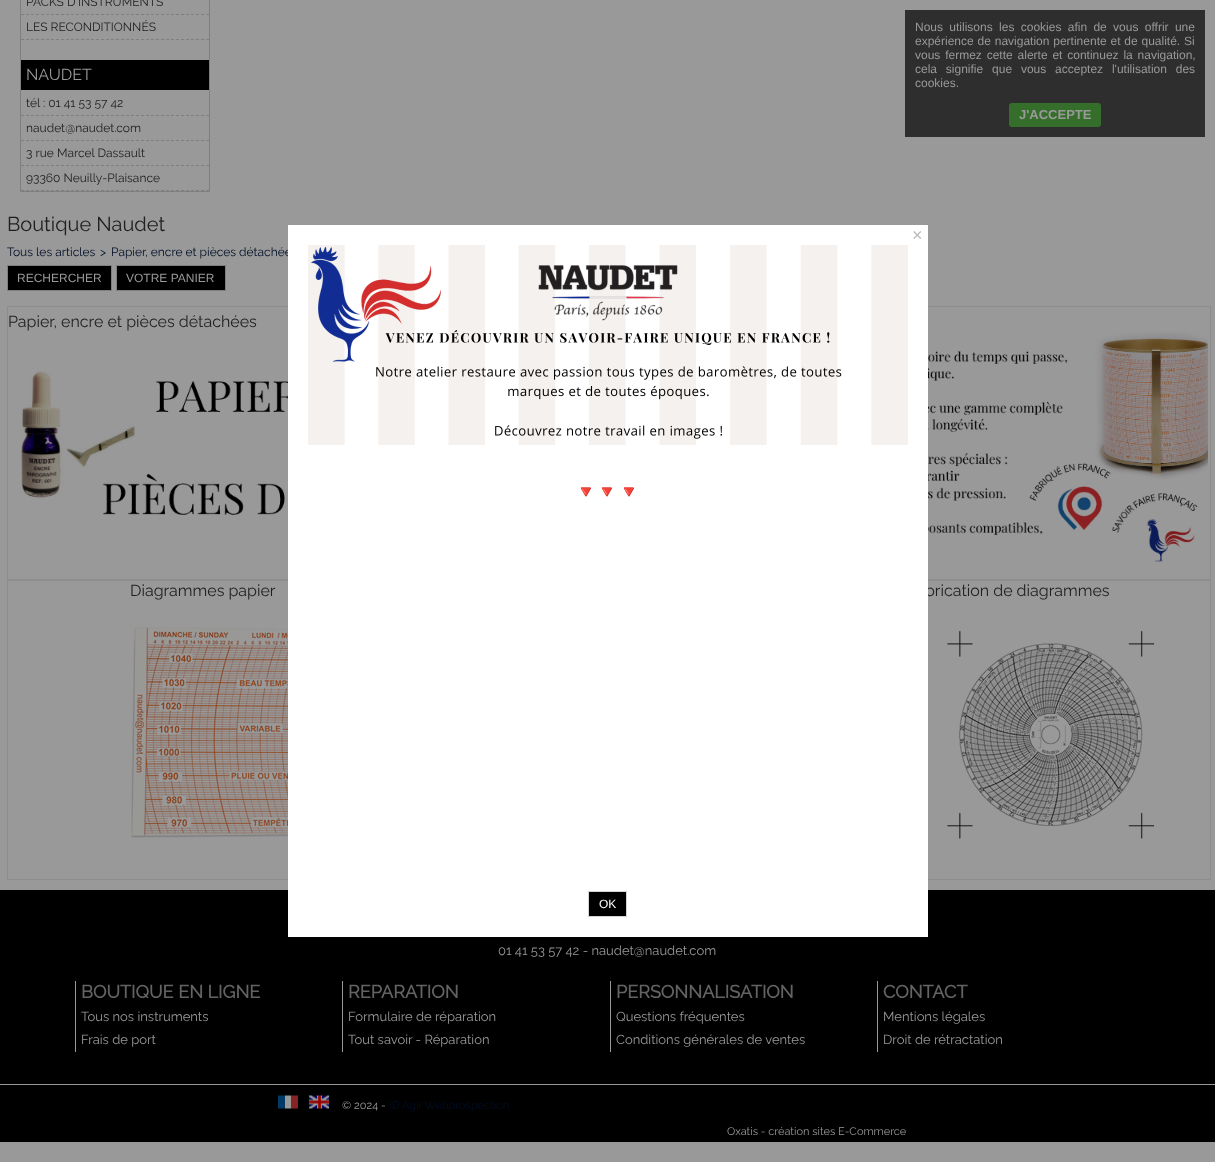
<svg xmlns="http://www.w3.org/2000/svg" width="1215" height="1162">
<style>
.a{font:100 12px Raleway;fill:#1f1f1f}
.b{font:100 16px Raleway;fill:#999}
.c{font:100 20px Raleway;fill:#1f1f1f}
.d{font:100 12px Raleway;fill:#000e26}
.e{font:12px Liberation Sans;fill:#999}
.f{font:100 16px Raleway;fill:#1f1f1f}
.g{font:100 13px Raleway;fill:#999}
.h{font:bold 18px Raleway;fill:#646363}
.i{font:100 11px Raleway;fill:#999}
.j{font:100 11px Raleway;fill:#000e26}
.k{font:bold 13px Liberation Sans;fill:#999}
.l{font:18px Liberation Sans;fill:#bbb}
.m{font:17.5px Noto Color Emoji;fill:#444}
.n{font:12px Liberation Sans;fill:#fff}
</style>
<rect width="100%" height="100%" fill="#999"/>
<path fill="none" stroke="#7f7f7f" d="M20.5 -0.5h189v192H20.5z"/>
<path fill="none" stroke="#7f7f7f" stroke-dasharray="3 2" d="M21 14.5h188"/>
<path fill="none" stroke="#7f7f7f" stroke-dasharray="3 2" d="M21 39.5h188"/>
<path fill="#000" d="M21 60h188v30H21z"/>
<path fill="none" stroke="#7f7f7f" stroke-dasharray="3 2" d="M21 115.5h188"/>
<path fill="none" stroke="#7f7f7f" stroke-dasharray="3 2" d="M21 140.5h188"/>
<path fill="none" stroke="#7f7f7f" stroke-dasharray="3 2" d="M21 165.5h188"/>
<path fill="none" stroke="#7f7f7f" stroke-dasharray="3 2" d="M21 190.5h188"/>
<path fill="#000" stroke="#7f7f7f" d="M7.5 265.5h104v25H7.5z"/>
<path fill="#000" stroke="#7f7f7f" d="M116.5 265.5h109v25H116.5z"/>
<path fill="none" stroke="#8d8d8d" d="M7.5 306.5h1203v273H7.5z"/>
<image href="1.png" x="21" y="332" width="1187" height="230"/>
<path fill="none" stroke="#8d8d8d" d="M7.5 580.5h391v299H7.5z"/>
<image href="2.png" x="131" y="627" width="157" height="211"/>
<path fill="none" stroke="#8d8d8d" d="M808.5 580.5h402v299H808.5z"/>
<image href="3.png" x="947" y="631" width="208" height="208"/>
<path fill="#000" d="M0 890h1215v252H0z"/>
<path fill="#999" d="M0 1084h1215v1H0z"/>
<path fill="#999" d="M75 981h1v71H75z"/>
<path fill="#999" d="M342 981h1v71H342z"/>
<path fill="#999" d="M610 981h1v71H610z"/>
<path fill="#999" d="M877 981h1v71H877z"/>
<image href="4.png" x="278" y="1095" width="20" height="14"/>
<image href="5.png" x="309" y="1095" width="20" height="14"/>
<path fill="#2e2e2e" d="M905 10h300v127H905z"/>
<rect fill="#356e2b" x="1009" y="103" width="92" height="24" rx="3"/>
<text class="a" x="26" y="6">PACKS D'INSTRUMENTS</text>
<text class="a" x="26" y="31">LES RECONDITIONNÉS</text>
<text class="b" x="26" y="80">NAUDET</text>
<text class="a" x="26" y="107">tél : 01 41 53 57 42</text>
<text class="a" x="26" y="132">naudet@naudet.com</text>
<text class="a" x="26" y="157">3 rue Marcel Dassault</text>
<text class="a" x="26" y="182">93360 Neuilly-Plaisance</text>
<text class="c" x="7" y="231">Boutique Naudet</text>
<text class="d" x="7" y="256">Tous les articles</text>
<text class="d" x="100" y="256">&gt;</text>
<text class="d" x="111" y="256">Papier, encre et pièces détachée</text>
<text class="e" x="17" y="282">RECHERCHER</text>
<text class="e" x="126" y="282">VOTRE PANIER</text>
<text class="f" x="8" y="327">Papier, encre et pièces détachées</text>
<text class="f" x="130" y="596">Diagrammes papier</text>
<text class="f" x="925" y="596">brication de diagrammes</text>
<text class="g" x="498" y="955">01 41 53 57 42 - naudet@naudet.com</text>
<text class="h" x="81" y="998">BOUTIQUE EN LIGNE</text>
<text class="h" x="348" y="998">REPARATION</text>
<text class="h" x="616" y="998">PERSONNALISATION</text>
<text class="h" x="883" y="998">CONTACT</text>
<text class="g" x="81" y="1021">Tous nos instruments</text>
<text class="g" x="348" y="1021">Formulaire de réparation</text>
<text class="g" x="616" y="1021">Questions fréquentes</text>
<text class="g" x="883" y="1021">Mentions légales</text>
<text class="g" x="81" y="1044">Frais de port</text>
<text class="g" x="348" y="1044">Tout savoir - Réparation</text>
<text class="g" x="616" y="1044">Conditions générales de ventes</text>
<text class="g" x="883" y="1044">Droit de rétractation</text>
<text class="i" x="342" y="1109">© 2024 -</text>
<text class="j" x="389" y="1109">ID Agir Webprospection</text>
<text class="i" x="727" y="1135">Oxatis - création sites E-Commerce</text>
<text class="e" x="915" y="31" word-spacing="3">Nous utilisons les cookies afin de vous offrir une</text>
<text class="e" x="915" y="45" word-spacing="0.5">expérience de navigation pertinente et de qualité. Si</text>
<text class="e" x="915" y="59" word-spacing="1.5">vous fermez cette alerte et continuez la navigation,</text>
<text class="e" x="915" y="73" word-spacing="5.5">cela signifie que vous acceptez l'utilisation des</text>
<text class="e" x="915" y="87">cookies.</text>
<text class="k" x="1019" y="119">J'ACCEPTE</text>
<path fill="#fff" d="M288 225h640v712H288z"/>
<text class="l" x="912" y="241">×</text>
<image href="6.png" x="308" y="245" width="600" height="200"/>
<text class="m" x="575" y="498">🔻🔻🔻</text>
<path fill="#000" stroke="#d4d4d4" d="M588.5 891.5h38v25H588.5z"/>
<text class="n" x="599" y="908">OK</text>
</svg>
